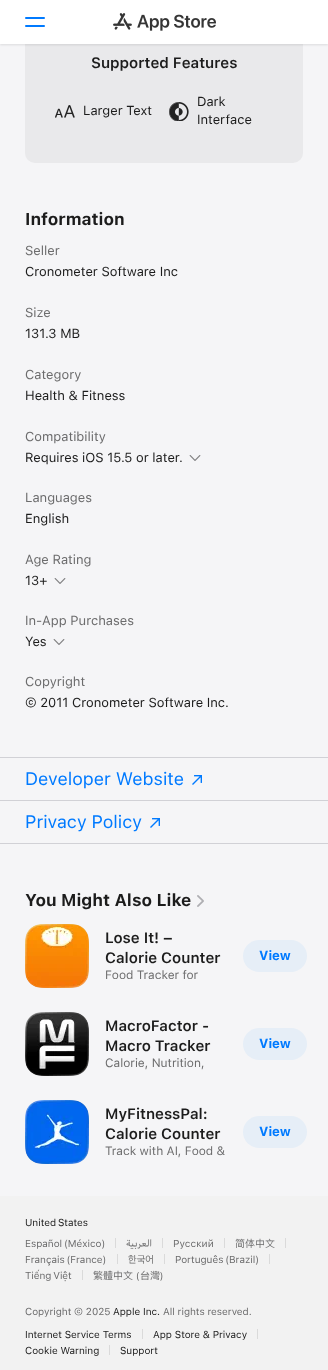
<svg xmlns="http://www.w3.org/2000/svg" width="328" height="1370">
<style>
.a{font:600 15px SF;fill:#1c1c1c}
.b{font:13px SF;fill:#1c1c1c}
.c{font:bold 17px SF;fill:#1c1c1c}
.d{font:13px SF;fill:#6c6c6d}
.e{font:18px 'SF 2';fill:#007aff}
.f{font:12px SF;fill:#6c6c6d}
.g{font:bold 13px SF;fill:#007aff}
.h{font:10px SF;fill:#1c1c1c}
.i{font:10px SF;fill:#6c6c6d}
.j{font:10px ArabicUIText;direction:rtl;fill:#6c6c6d}
.k{font:10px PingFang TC;fill:#6c6c6d}
.l{font:10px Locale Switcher;fill:#6c6c6d}
.m{font:10px 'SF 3';fill:#6c6c6d}
</style>
<rect width="100%" height="100%" fill="#f5f5f7"/>
<rect fill="#e9e9eb" x="25" y="-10" width="278" height="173" rx="10"/>
<path fill="#0000001a" filter="blur(1px)" d="M0 1h328v44H0z"/>
<path fill="#fff" d="M0 0h328v44H0z"/>
<rect fill="#007aff" x="25" y="17" width="20" height="2" rx="1"/>
<rect fill="#007aff" x="25" y="25" width="20" height="2" rx="1"/>
<image href="1.png" x="113" y="13" width="103" height="18"/>
<image href="2.png" x="55" y="105" width="20" height="13"/>
<image href="3.png" x="169" y="102" width="20" height="19"/>
<image href="4.png" x="189" y="455" width="12" height="6"/>
<image href="4.png" x="54" y="578" width="12" height="6"/>
<image href="4.png" x="53" y="639" width="12" height="6"/>
<path fill="#d1d1d6" d="M0 757h328v1H0z"/>
<path fill="#d1d1d6" d="M0 800h328v1H0z"/>
<image href="5.png" x="192" y="775" width="10" height="10"/>
<path fill="#d1d1d6" d="M0 843h328v1H0z"/>
<image href="5.png" x="150" y="818" width="10" height="10"/>
<image href="6.png" x="197" y="895" width="7" height="12"/>
<image href="7.png" x="25" y="924" width="64" height="64"/>
<rect fill="none" stroke="#8080801a" x="25.5" y="924.5" width="63" height="63" rx="15.5"/>
<rect fill="#e6eef7" x="243" y="940" width="64" height="32" rx="16"/>
<image href="8.png" x="25" y="1012" width="64" height="64"/>
<rect fill="none" stroke="#8080801a" x="25.5" y="1012.5" width="63" height="63" rx="15.5"/>
<rect fill="#e6eef7" x="243" y="1028" width="64" height="32" rx="16"/>
<image href="9.png" x="25" y="1100" width="64" height="64"/>
<rect fill="none" stroke="#8080801a" x="25.5" y="1100.5" width="63" height="63" rx="15.5"/>
<rect fill="#e6eef7" x="243" y="1116" width="64" height="32" rx="16"/>
<path fill="#f2f2f2" d="M0 1196h328v174H0z"/>
<path fill="#dadada" d="M115 1238h1v10H115z"/>
<path fill="#dadada" d="M162 1238h1v10H162z"/>
<path fill="#dadada" d="M224 1238h1v10H224z"/>
<path fill="#dadada" d="M285 1238h1v10H285z"/>
<path fill="#dadada" d="M117 1254h1v10H117z"/>
<path fill="#dadada" d="M164 1254h1v10H164z"/>
<path fill="#dadada" d="M269 1254h1v10H269z"/>
<path fill="#dadada" d="M82 1270h1v10H82z"/>
<path fill="#dadada" d="M142 1329h1v10H142z"/>
<path fill="#dadada" d="M257 1329h1v10H257z"/>
<path fill="#dadada" d="M109 1345h1v10H109z"/>
<text class="a" x="91" y="68">Supported Features</text>
<text class="b" x="83" y="115">Larger Text</text>
<text class="b" x="197" y="106">Dark</text>
<text class="b" x="197" y="124">Interface</text>
<text class="c" x="25" y="225">Information</text>
<text class="d" x="25" y="255">Seller</text>
<text class="b" x="25" y="276">Cronometer Software Inc</text>
<text class="d" x="25" y="317">Size</text>
<text class="b" x="25" y="338">131.3 MB</text>
<text class="d" x="25" y="379">Category</text>
<text class="b" x="25" y="400">Health &amp; Fitness</text>
<text class="d" x="25" y="441">Compatibility</text>
<text class="b" x="25" y="462">Requires iOS 15.5 or later.</text>
<text class="d" x="25" y="502">Languages</text>
<text class="b" x="25" y="523">English</text>
<text class="d" x="25" y="564">Age Rating</text>
<text class="b" x="25" y="585">13+</text>
<text class="d" x="25" y="625">In-App Purchases</text>
<text class="b" x="25" y="646">Yes</text>
<text class="d" x="25" y="686">Copyright</text>
<text class="b" x="25" y="707">© 2011 Cronometer Software Inc.</text>
<text class="e" x="25" y="785">Developer Website</text>
<text class="e" x="25" y="828">Privacy Policy</text>
<text class="c" x="25" y="906">You Might Also Like</text>
<text class="a" x="105" y="943">Lose It! –</text>
<text class="a" x="105" y="963">Calorie Counter</text>
<text class="f" x="105" y="979">Food Tracker for</text>
<text class="g" x="259" y="960">View</text>
<text class="a" x="105" y="1031">MacroFactor -</text>
<text class="a" x="105" y="1051">Macro Tracker</text>
<text class="f" x="105" y="1067">Calorie, Nutrition,</text>
<text class="g" x="259" y="1048">View</text>
<text class="a" x="105" y="1119">MyFitnessPal:</text>
<text class="a" x="105" y="1139">Calorie Counter</text>
<text class="f" x="105" y="1155">Track with AI, Food &amp;</text>
<text class="g" x="259" y="1136">View</text>
<text class="h" x="25" y="1226" word-spacing="-1">United States</text>
<text class="i" x="25" y="1247" word-spacing="-1">Español (México)</text>
<text class="j" x="152" y="1247">العربية</text>
<text class="i" x="173" y="1247">Русский</text>
<text class="k" x="235" y="1247">简体中文</text>
<text class="i" x="25" y="1263" word-spacing="-1">Français (France)</text>
<text class="l" x="128" y="1263">한국어</text>
<text class="i" x="175" y="1263" word-spacing="-1">Português (Brazil)</text>
<text class="i" x="25" y="1279" word-spacing="-1">Tiếng Việt</text>
<text class="k" x="93" y="1279">繁體中文</text>
<text class="m" x="136" y="1279">(</text>
<text class="k" x="140" y="1279">台灣</text>
<text class="m" x="160" y="1279">)</text>
<text class="i" x="25" y="1315">Copyright © 2025</text>
<text class="h" x="113" y="1315">Apple Inc.</text>
<text class="i" x="163" y="1315">All rights reserved.</text>
<text class="h" x="25" y="1338">Internet Service Terms</text>
<text class="h" x="153" y="1338">App Store &amp; Privacy</text>
<text class="h" x="25" y="1354">Cookie Warning</text>
<text class="h" x="120" y="1354">Support</text>
</svg>
